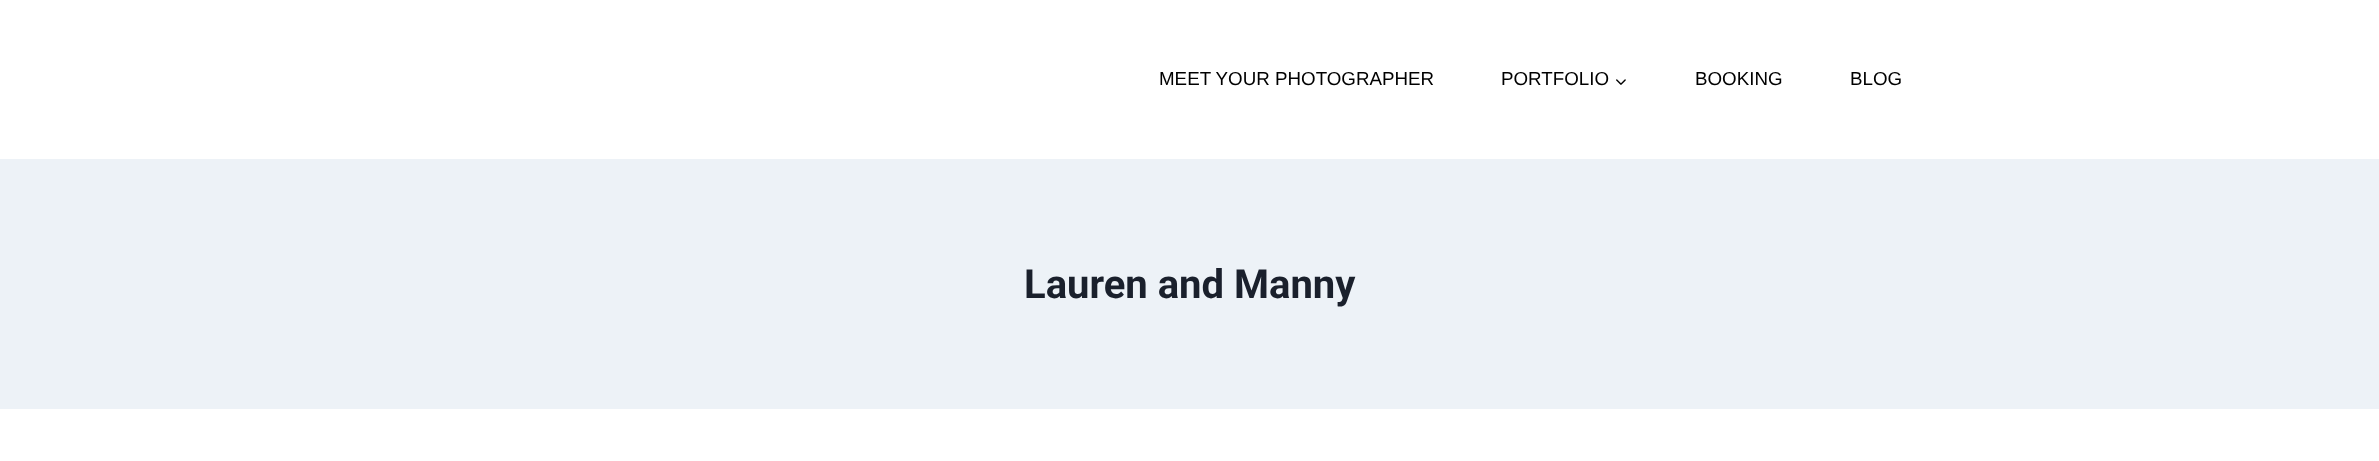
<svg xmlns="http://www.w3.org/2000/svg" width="2379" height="461">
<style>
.a{font:18.75px Liberation Sans;fill:#000}
.b{font:bold 40px Roboto;fill:#1a202c}
</style>
<rect width="100%" height="100%" fill="#fff"/>
<image href="1.png" x="1616" y="79" width="10" height="6"/>
<path fill="#edf2f7" d="M0 159h2379v250H0z"/>
<text class="a" x="1159" y="85">MEET YOUR PHOTOGRAPHER</text>
<text class="a" x="1501" y="85">PORTFOLIO</text>
<text class="a" x="1695" y="85">BOOKING</text>
<text class="a" x="1850" y="85">BLOG</text>
<text class="b" x="1024" y="298">Lauren and Manny</text>
</svg>
